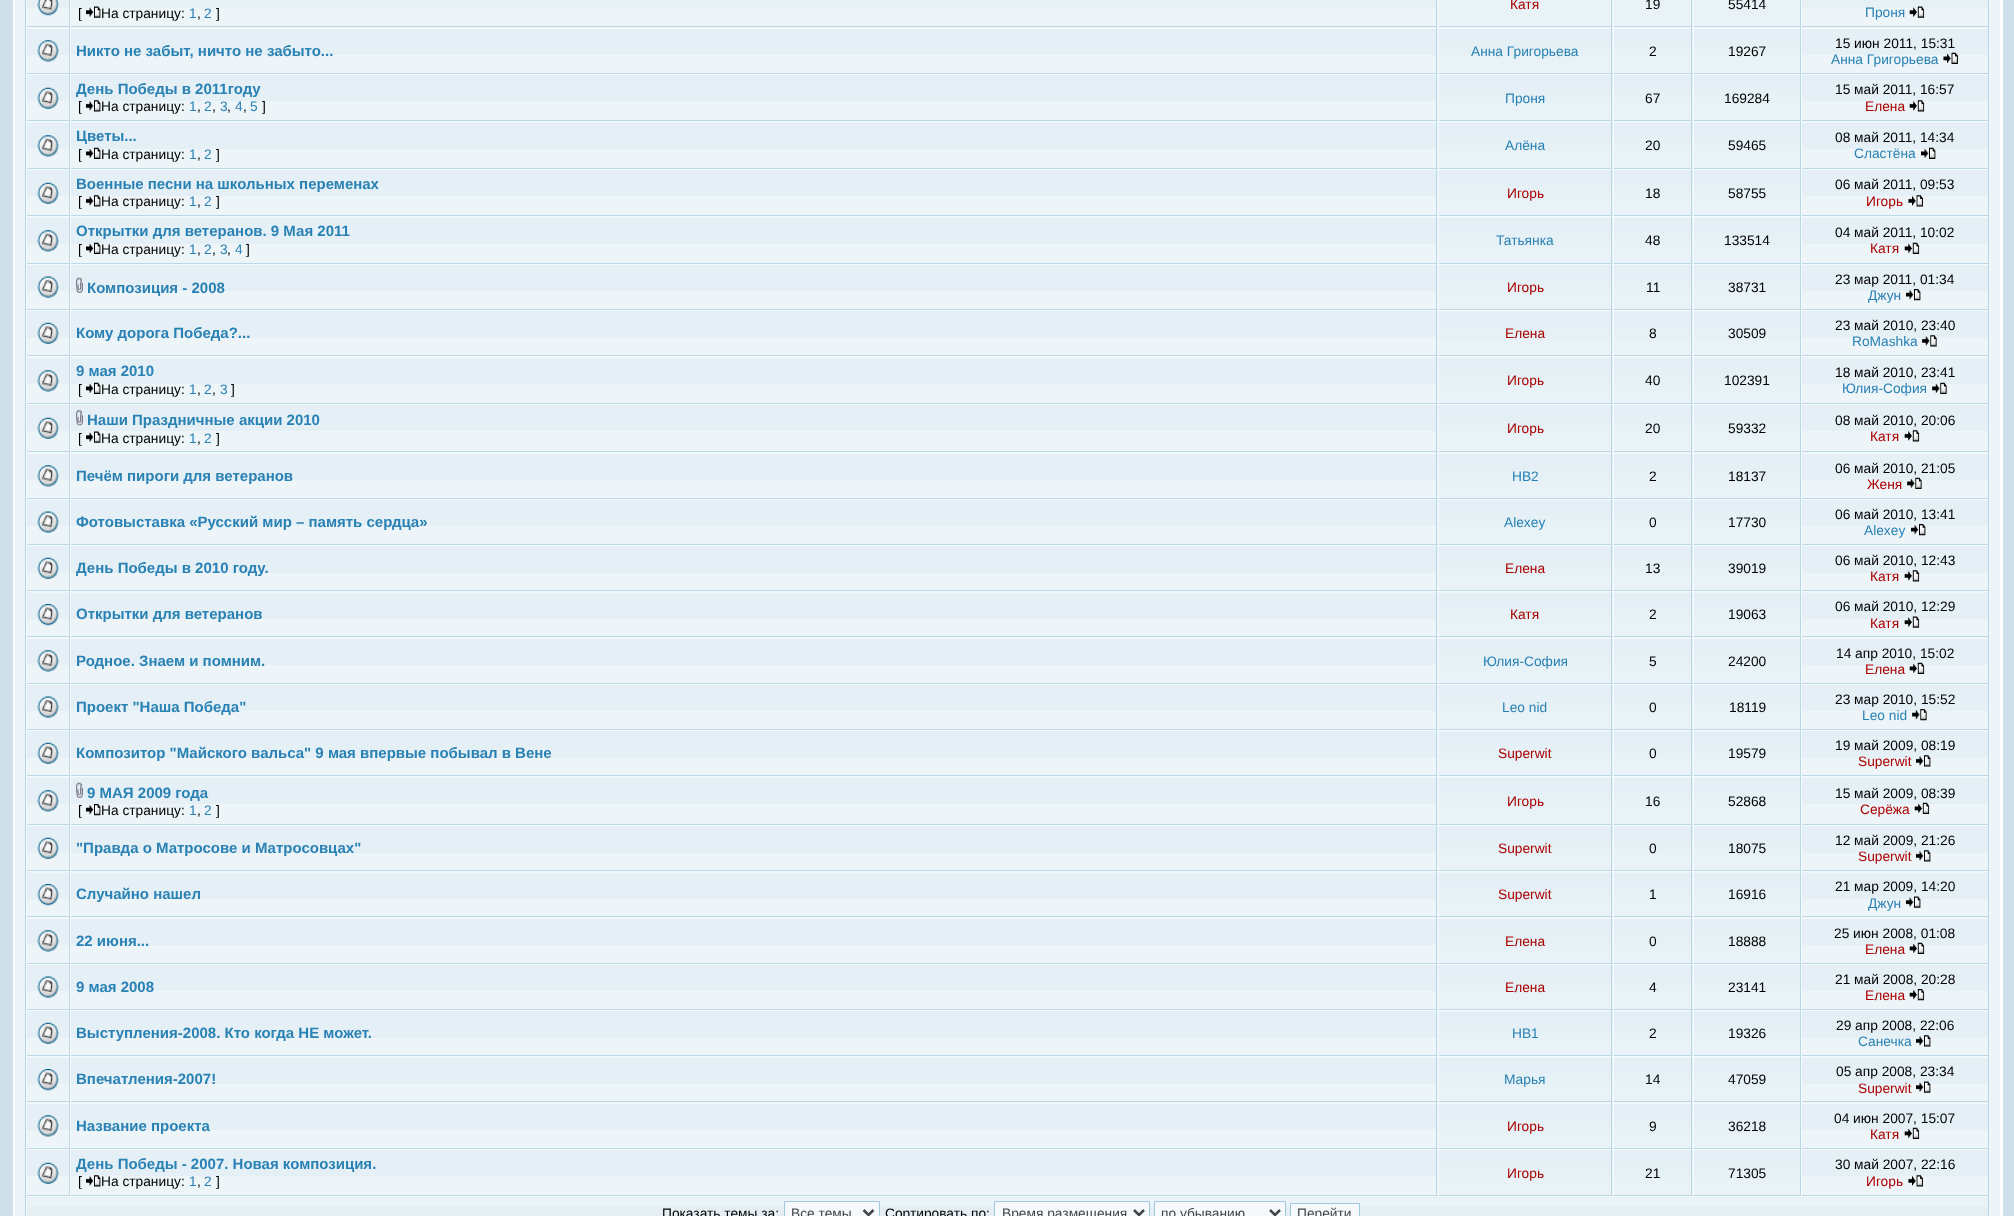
<svg xmlns="http://www.w3.org/2000/svg" width="2014" height="1216">
<style>
.a{font:13.75px Liberation Sans;fill:#a00}
.b{font:13.75px Liberation Sans;fill:#000}
.c{font:13.75px Liberation Sans;fill:#2981b4}
.d{font:bold 15px Liberation Sans;fill:#2981b4}
.e{font:13.75px Liberation Sans;fill:#444}
</style>
<rect width="100%" height="100%" fill="#fff"/>
<image href="1.png" x="0" y="0" width="2014" height="1216"/>
<path fill="none" stroke="#fff" stroke-width="3" d="M14.5 -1.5h1987v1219H14.5z"/>
<path fill="#edf5f9" d="M15 0h1985v1216H15z"/>
<path fill="#b2d3e4" d="M25 0h1v1216H25z"/>
<path fill="#e6f1f6" d="M27 0h1410v8H27z"/>
<path fill="#bbd8e7" d="M69 0h1v28H69z"/>
<path fill="#bbd8e7" d="M26 26h44v1H26z"/>
<path fill="#f4f9fb" d="M26 0h1v28H26z"/>
<image href="2.png" x="37" y="0" width="22" height="16"/>
<path fill="#bbd8e7" d="M1436 0h1v28H1436z"/>
<path fill="#bbd8e7" d="M70 26h1368v1H70z"/>
<path fill="#e8f2f7" d="M1437 0h174v27H1437z"/>
<path fill="#bbd8e7" d="M1611 0h1v28H1611z"/>
<path fill="#bbd8e7" d="M1438 26h175v1H1438z"/>
<path fill="#f4f9fb" d="M1438 0h1v28H1438z"/>
<path fill="#e8f2f7" d="M1612 0h79v27H1612z"/>
<path fill="#bbd8e7" d="M1691 0h1v28H1691z"/>
<path fill="#bbd8e7" d="M1613 26h80v1H1613z"/>
<path fill="#f4f9fb" d="M1613 0h1v28H1613z"/>
<path fill="#e8f2f7" d="M1692 0h108v27H1692z"/>
<path fill="#bbd8e7" d="M1800 0h1v28H1800z"/>
<path fill="#bbd8e7" d="M1693 26h108v1H1693z"/>
<path fill="#f4f9fb" d="M1693 0h1v28H1693z"/>
<path fill="#f4f9fb" d="M70 0h1v28H70z"/>
<image href="3.png" x="86" y="6" width="15" height="12"/>
<path fill="#e6f1f6" d="M1802 0h186v8H1802z"/>
<path fill="#bbd8e7" d="M1988 0h1v28H1988z"/>
<path fill="#bbd8e7" d="M1801 26h188v1H1801z"/>
<path fill="#f4f9fb" d="M1801 0h1v28H1801z"/>
<image href="4.png" x="1909" y="6" width="16" height="12"/>
<path fill="#e5f0f6" d="M27 29h42v26H27z"/>
<path fill="#f4f9fb" d="M26 28h1963v1H26z"/>
<path fill="#bbd8e7" d="M69 28h1v46H69z"/>
<path fill="#bbd8e7" d="M26 73h44v1H26z"/>
<path fill="#f4f9fb" d="M26 28h1v46H26z"/>
<image href="5.png" x="37" y="40" width="22" height="22"/>
<path fill="#e5f0f6" d="M71 29h1367v26H71z"/>
<path fill="#bbd8e7" d="M1436 28h1v46H1436z"/>
<path fill="#bbd8e7" d="M70 73h1368v1H70z"/>
<path fill="#f4f9fb" d="M70 28h1v46H70z"/>
<image href="6.png" x="1437" y="29" width="176" height="45"/>
<path fill="#bbd8e7" d="M1611 28h1v46H1611z"/>
<path fill="#bbd8e7" d="M1438 73h175v1H1438z"/>
<path fill="#f4f9fb" d="M1438 28h1v46H1438z"/>
<image href="7.png" x="1612" y="29" width="81" height="45"/>
<path fill="#bbd8e7" d="M1691 28h1v46H1691z"/>
<path fill="#bbd8e7" d="M1613 73h80v1H1613z"/>
<path fill="#f4f9fb" d="M1613 28h1v46H1613z"/>
<image href="8.png" x="1692" y="29" width="108" height="45"/>
<path fill="#bbd8e7" d="M1800 28h1v46H1800z"/>
<path fill="#bbd8e7" d="M1693 73h108v1H1693z"/>
<path fill="#f4f9fb" d="M1693 28h1v46H1693z"/>
<path fill="#e5f0f6" d="M1802 29h186v26H1802z"/>
<path fill="#bbd8e7" d="M1988 28h1v46H1988z"/>
<path fill="#bbd8e7" d="M1801 73h188v1H1801z"/>
<path fill="#f4f9fb" d="M1801 28h1v46H1801z"/>
<image href="9.png" x="1943" y="52" width="15" height="12"/>
<path fill="#e5f0f6" d="M27 75h42v26H27z"/>
<path fill="#f4f9fb" d="M26 74h1963v1H26z"/>
<path fill="#bbd8e7" d="M69 74h1v47H69z"/>
<path fill="#bbd8e7" d="M26 120h44v1H26z"/>
<path fill="#f4f9fb" d="M26 74h1v47H26z"/>
<image href="10.png" x="37" y="87" width="22" height="22"/>
<path fill="#e5f0f6" d="M71 75h1367v26H71z"/>
<path fill="#bbd8e7" d="M1436 74h1v47H1436z"/>
<path fill="#bbd8e7" d="M70 120h1368v1H70z"/>
<path fill="#f4f9fb" d="M70 74h1v47H70z"/>
<image href="11.png" x="86" y="100" width="15" height="12"/>
<image href="12.png" x="1437" y="75" width="176" height="46"/>
<path fill="#bbd8e7" d="M1611 74h1v47H1611z"/>
<path fill="#bbd8e7" d="M1438 120h175v1H1438z"/>
<path fill="#f4f9fb" d="M1438 74h1v47H1438z"/>
<image href="13.png" x="1612" y="75" width="81" height="46"/>
<path fill="#bbd8e7" d="M1691 74h1v47H1691z"/>
<path fill="#bbd8e7" d="M1613 120h80v1H1613z"/>
<path fill="#f4f9fb" d="M1613 74h1v47H1613z"/>
<image href="14.png" x="1692" y="75" width="108" height="46"/>
<path fill="#bbd8e7" d="M1800 74h1v47H1800z"/>
<path fill="#bbd8e7" d="M1693 120h108v1H1693z"/>
<path fill="#f4f9fb" d="M1693 74h1v47H1693z"/>
<path fill="#e5f0f6" d="M1802 75h186v26H1802z"/>
<path fill="#bbd8e7" d="M1988 74h1v47H1988z"/>
<path fill="#bbd8e7" d="M1801 120h188v1H1801z"/>
<path fill="#f4f9fb" d="M1801 74h1v47H1801z"/>
<image href="15.png" x="1909" y="100" width="16" height="12"/>
<path fill="#e5f0f6" d="M27 123h42v26H27z"/>
<path fill="#f4f9fb" d="M26 121h1963v1H26z"/>
<path fill="#bbd8e7" d="M69 121h1v48H69z"/>
<path fill="#bbd8e7" d="M26 168h44v1H26z"/>
<path fill="#f4f9fb" d="M26 121h1v48H26z"/>
<image href="16.png" x="37" y="135" width="22" height="22"/>
<path fill="#e5f0f6" d="M71 123h1367v26H71z"/>
<path fill="#bbd8e7" d="M1436 121h1v48H1436z"/>
<path fill="#bbd8e7" d="M70 168h1368v1H70z"/>
<path fill="#f4f9fb" d="M70 121h1v48H70z"/>
<image href="17.png" x="86" y="147" width="15" height="12"/>
<image href="18.png" x="1437" y="123" width="176" height="46"/>
<path fill="#bbd8e7" d="M1611 121h1v48H1611z"/>
<path fill="#bbd8e7" d="M1438 168h175v1H1438z"/>
<path fill="#f4f9fb" d="M1438 121h1v48H1438z"/>
<image href="19.png" x="1612" y="123" width="81" height="46"/>
<path fill="#bbd8e7" d="M1691 121h1v48H1691z"/>
<path fill="#bbd8e7" d="M1613 168h80v1H1613z"/>
<path fill="#f4f9fb" d="M1613 121h1v48H1613z"/>
<image href="20.png" x="1692" y="123" width="108" height="46"/>
<path fill="#bbd8e7" d="M1800 121h1v48H1800z"/>
<path fill="#bbd8e7" d="M1693 168h108v1H1693z"/>
<path fill="#f4f9fb" d="M1693 121h1v48H1693z"/>
<path fill="#e5f0f6" d="M1802 123h186v26H1802z"/>
<path fill="#bbd8e7" d="M1988 121h1v48H1988z"/>
<path fill="#bbd8e7" d="M1801 168h188v1H1801z"/>
<path fill="#f4f9fb" d="M1801 121h1v48H1801z"/>
<image href="17.png" x="1921" y="147" width="15" height="12"/>
<path fill="#e5f0f6" d="M27 170h42v26H27z"/>
<path fill="#f4f9fb" d="M26 169h1963v1H26z"/>
<path fill="#bbd8e7" d="M69 169h1v47H69z"/>
<path fill="#bbd8e7" d="M26 215h44v1H26z"/>
<path fill="#f4f9fb" d="M26 169h1v47H26z"/>
<image href="10.png" x="37" y="182" width="22" height="22"/>
<path fill="#e5f0f6" d="M71 170h1367v26H71z"/>
<path fill="#bbd8e7" d="M1436 169h1v47H1436z"/>
<path fill="#bbd8e7" d="M70 215h1368v1H70z"/>
<path fill="#f4f9fb" d="M70 169h1v47H70z"/>
<image href="11.png" x="86" y="195" width="15" height="12"/>
<image href="12.png" x="1437" y="170" width="176" height="46"/>
<path fill="#bbd8e7" d="M1611 169h1v47H1611z"/>
<path fill="#bbd8e7" d="M1438 215h175v1H1438z"/>
<path fill="#f4f9fb" d="M1438 169h1v47H1438z"/>
<image href="13.png" x="1612" y="170" width="81" height="46"/>
<path fill="#bbd8e7" d="M1691 169h1v47H1691z"/>
<path fill="#bbd8e7" d="M1613 215h80v1H1613z"/>
<path fill="#f4f9fb" d="M1613 169h1v47H1613z"/>
<image href="14.png" x="1692" y="170" width="108" height="46"/>
<path fill="#bbd8e7" d="M1800 169h1v47H1800z"/>
<path fill="#bbd8e7" d="M1693 215h108v1H1693z"/>
<path fill="#f4f9fb" d="M1693 169h1v47H1693z"/>
<path fill="#e5f0f6" d="M1802 170h186v26H1802z"/>
<path fill="#bbd8e7" d="M1988 169h1v47H1988z"/>
<path fill="#bbd8e7" d="M1801 215h188v1H1801z"/>
<path fill="#f4f9fb" d="M1801 169h1v47H1801z"/>
<image href="21.png" x="1908" y="195" width="15" height="12"/>
<path fill="#e5f0f6" d="M27 218h42v26H27z"/>
<path fill="#f4f9fb" d="M26 216h1963v1H26z"/>
<path fill="#bbd8e7" d="M69 216h1v48H69z"/>
<path fill="#bbd8e7" d="M26 263h44v1H26z"/>
<path fill="#f4f9fb" d="M26 216h1v48H26z"/>
<image href="16.png" x="37" y="230" width="22" height="22"/>
<path fill="#e5f0f6" d="M71 218h1367v26H71z"/>
<path fill="#bbd8e7" d="M1436 216h1v48H1436z"/>
<path fill="#bbd8e7" d="M70 263h1368v1H70z"/>
<path fill="#f4f9fb" d="M70 216h1v48H70z"/>
<image href="22.png" x="86" y="242" width="15" height="12"/>
<image href="18.png" x="1437" y="218" width="176" height="46"/>
<path fill="#bbd8e7" d="M1611 216h1v48H1611z"/>
<path fill="#bbd8e7" d="M1438 263h175v1H1438z"/>
<path fill="#f4f9fb" d="M1438 216h1v48H1438z"/>
<image href="19.png" x="1612" y="218" width="81" height="46"/>
<path fill="#bbd8e7" d="M1691 216h1v48H1691z"/>
<path fill="#bbd8e7" d="M1613 263h80v1H1613z"/>
<path fill="#f4f9fb" d="M1613 216h1v48H1613z"/>
<image href="20.png" x="1692" y="218" width="108" height="46"/>
<path fill="#bbd8e7" d="M1800 216h1v48H1800z"/>
<path fill="#bbd8e7" d="M1693 263h108v1H1693z"/>
<path fill="#f4f9fb" d="M1693 216h1v48H1693z"/>
<path fill="#e5f0f6" d="M1802 218h186v26H1802z"/>
<path fill="#bbd8e7" d="M1988 216h1v48H1988z"/>
<path fill="#bbd8e7" d="M1801 263h188v1H1801z"/>
<path fill="#f4f9fb" d="M1801 216h1v48H1801z"/>
<image href="23.png" x="1904" y="242" width="16" height="12"/>
<path fill="#e5f0f6" d="M27 265h42v26H27z"/>
<path fill="#f4f9fb" d="M26 264h1963v1H26z"/>
<path fill="#bbd8e7" d="M69 264h1v46H69z"/>
<path fill="#bbd8e7" d="M26 309h44v1H26z"/>
<path fill="#f4f9fb" d="M26 264h1v46H26z"/>
<image href="24.png" x="37" y="276" width="22" height="22"/>
<path fill="#e5f0f6" d="M71 265h1367v26H71z"/>
<path fill="#bbd8e7" d="M1436 264h1v46H1436z"/>
<path fill="#bbd8e7" d="M70 309h1368v1H70z"/>
<path fill="#f4f9fb" d="M70 264h1v46H70z"/>
<image href="25.png" x="76" y="277" width="7" height="16"/>
<image href="26.png" x="1437" y="265" width="176" height="45"/>
<path fill="#bbd8e7" d="M1611 264h1v46H1611z"/>
<path fill="#bbd8e7" d="M1438 309h175v1H1438z"/>
<path fill="#f4f9fb" d="M1438 264h1v46H1438z"/>
<image href="27.png" x="1612" y="265" width="81" height="45"/>
<path fill="#bbd8e7" d="M1691 264h1v46H1691z"/>
<path fill="#bbd8e7" d="M1613 309h80v1H1613z"/>
<path fill="#f4f9fb" d="M1613 264h1v46H1613z"/>
<image href="28.png" x="1692" y="265" width="108" height="45"/>
<path fill="#bbd8e7" d="M1800 264h1v46H1800z"/>
<path fill="#bbd8e7" d="M1693 309h108v1H1693z"/>
<path fill="#f4f9fb" d="M1693 264h1v46H1693z"/>
<path fill="#e5f0f6" d="M1802 265h186v26H1802z"/>
<path fill="#bbd8e7" d="M1988 264h1v46H1988z"/>
<path fill="#bbd8e7" d="M1801 309h188v1H1801z"/>
<path fill="#f4f9fb" d="M1801 264h1v46H1801z"/>
<image href="29.png" x="1906" y="289" width="15" height="12"/>
<path fill="#e5f0f6" d="M27 311h42v27H27z"/>
<path fill="#f4f9fb" d="M26 310h1963v1H26z"/>
<path fill="#bbd8e7" d="M69 310h1v46H69z"/>
<path fill="#bbd8e7" d="M26 355h44v1H26z"/>
<path fill="#f4f9fb" d="M26 310h1v46H26z"/>
<image href="30.png" x="37" y="322" width="22" height="22"/>
<path fill="#e5f0f6" d="M71 311h1367v27H71z"/>
<path fill="#bbd8e7" d="M1436 310h1v46H1436z"/>
<path fill="#bbd8e7" d="M70 355h1368v1H70z"/>
<path fill="#f4f9fb" d="M70 310h1v46H70z"/>
<image href="31.png" x="1437" y="311" width="176" height="45"/>
<path fill="#bbd8e7" d="M1611 310h1v46H1611z"/>
<path fill="#bbd8e7" d="M1438 355h175v1H1438z"/>
<path fill="#f4f9fb" d="M1438 310h1v46H1438z"/>
<image href="32.png" x="1612" y="311" width="81" height="45"/>
<path fill="#bbd8e7" d="M1691 310h1v46H1691z"/>
<path fill="#bbd8e7" d="M1613 355h80v1H1613z"/>
<path fill="#f4f9fb" d="M1613 310h1v46H1613z"/>
<image href="33.png" x="1692" y="311" width="108" height="45"/>
<path fill="#bbd8e7" d="M1800 310h1v46H1800z"/>
<path fill="#bbd8e7" d="M1693 355h108v1H1693z"/>
<path fill="#f4f9fb" d="M1693 310h1v46H1693z"/>
<path fill="#e5f0f6" d="M1802 311h186v27H1802z"/>
<path fill="#bbd8e7" d="M1988 310h1v46H1988z"/>
<path fill="#bbd8e7" d="M1801 355h188v1H1801z"/>
<path fill="#f4f9fb" d="M1801 310h1v46H1801z"/>
<image href="34.png" x="1922" y="335" width="15" height="12"/>
<path fill="#e5f0f6" d="M27 358h42v26H27z"/>
<path fill="#f4f9fb" d="M26 356h1963v1H26z"/>
<path fill="#bbd8e7" d="M69 356h1v48H69z"/>
<path fill="#bbd8e7" d="M26 403h44v1H26z"/>
<path fill="#f4f9fb" d="M26 356h1v48H26z"/>
<image href="16.png" x="37" y="370" width="22" height="22"/>
<path fill="#e5f0f6" d="M71 358h1367v26H71z"/>
<path fill="#bbd8e7" d="M1436 356h1v48H1436z"/>
<path fill="#bbd8e7" d="M70 403h1368v1H70z"/>
<path fill="#f4f9fb" d="M70 356h1v48H70z"/>
<image href="17.png" x="86" y="382" width="15" height="12"/>
<image href="18.png" x="1437" y="358" width="176" height="46"/>
<path fill="#bbd8e7" d="M1611 356h1v48H1611z"/>
<path fill="#bbd8e7" d="M1438 403h175v1H1438z"/>
<path fill="#f4f9fb" d="M1438 356h1v48H1438z"/>
<image href="19.png" x="1612" y="358" width="81" height="46"/>
<path fill="#bbd8e7" d="M1691 356h1v48H1691z"/>
<path fill="#bbd8e7" d="M1613 403h80v1H1613z"/>
<path fill="#f4f9fb" d="M1613 356h1v48H1613z"/>
<image href="20.png" x="1692" y="358" width="108" height="46"/>
<path fill="#bbd8e7" d="M1800 356h1v48H1800z"/>
<path fill="#bbd8e7" d="M1693 403h108v1H1693z"/>
<path fill="#f4f9fb" d="M1693 356h1v48H1693z"/>
<path fill="#e5f0f6" d="M1802 358h186v26H1802z"/>
<path fill="#bbd8e7" d="M1988 356h1v48H1988z"/>
<path fill="#bbd8e7" d="M1801 403h188v1H1801z"/>
<path fill="#f4f9fb" d="M1801 356h1v48H1801z"/>
<image href="35.png" x="1932" y="382" width="15" height="12"/>
<path fill="#e5f0f6" d="M27 405h42v26H27z"/>
<path fill="#f4f9fb" d="M26 404h1963v1H26z"/>
<path fill="#bbd8e7" d="M69 404h1v49H69z"/>
<path fill="#bbd8e7" d="M26 451h44v1H26z"/>
<path fill="#f4f9fb" d="M26 404h1v49H26z"/>
<image href="10.png" x="37" y="417" width="22" height="22"/>
<path fill="#e5f0f6" d="M71 405h1367v26H71z"/>
<path fill="#bbd8e7" d="M1436 404h1v49H1436z"/>
<path fill="#bbd8e7" d="M70 451h1368v1H70z"/>
<path fill="#f4f9fb" d="M70 404h1v49H70z"/>
<image href="36.png" x="76" y="410" width="7" height="16"/>
<image href="37.png" x="86" y="431" width="15" height="12"/>
<image href="38.png" x="1437" y="405" width="176" height="47"/>
<path fill="#bbd8e7" d="M1611 404h1v49H1611z"/>
<path fill="#bbd8e7" d="M1438 451h175v1H1438z"/>
<path fill="#f4f9fb" d="M1438 404h1v49H1438z"/>
<image href="39.png" x="1612" y="405" width="81" height="47"/>
<path fill="#bbd8e7" d="M1691 404h1v49H1691z"/>
<path fill="#bbd8e7" d="M1613 451h80v1H1613z"/>
<path fill="#f4f9fb" d="M1613 404h1v49H1613z"/>
<image href="40.png" x="1692" y="405" width="108" height="47"/>
<path fill="#bbd8e7" d="M1800 404h1v49H1800z"/>
<path fill="#bbd8e7" d="M1693 451h108v1H1693z"/>
<path fill="#f4f9fb" d="M1693 404h1v49H1693z"/>
<path fill="#e5f0f6" d="M1802 405h186v26H1802z"/>
<path fill="#bbd8e7" d="M1988 404h1v49H1988z"/>
<path fill="#bbd8e7" d="M1801 451h188v1H1801z"/>
<path fill="#f4f9fb" d="M1801 404h1v49H1801z"/>
<image href="15.png" x="1904" y="430" width="16" height="12"/>
<path fill="#e5f0f6" d="M27 454h42v26H27z"/>
<path fill="#f4f9fb" d="M26 453h1963v1H26z"/>
<path fill="#bbd8e7" d="M69 453h1v46H69z"/>
<path fill="#bbd8e7" d="M26 498h44v1H26z"/>
<path fill="#f4f9fb" d="M26 453h1v46H26z"/>
<image href="5.png" x="37" y="465" width="22" height="22"/>
<path fill="#e5f0f6" d="M71 454h1367v26H71z"/>
<path fill="#bbd8e7" d="M1436 453h1v46H1436z"/>
<path fill="#bbd8e7" d="M70 498h1368v1H70z"/>
<path fill="#f4f9fb" d="M70 453h1v46H70z"/>
<image href="6.png" x="1437" y="454" width="176" height="45"/>
<path fill="#bbd8e7" d="M1611 453h1v46H1611z"/>
<path fill="#bbd8e7" d="M1438 498h175v1H1438z"/>
<path fill="#f4f9fb" d="M1438 453h1v46H1438z"/>
<image href="7.png" x="1612" y="454" width="81" height="45"/>
<path fill="#bbd8e7" d="M1691 453h1v46H1691z"/>
<path fill="#bbd8e7" d="M1613 498h80v1H1613z"/>
<path fill="#f4f9fb" d="M1613 453h1v46H1613z"/>
<image href="8.png" x="1692" y="454" width="108" height="45"/>
<path fill="#bbd8e7" d="M1800 453h1v46H1800z"/>
<path fill="#bbd8e7" d="M1693 498h108v1H1693z"/>
<path fill="#f4f9fb" d="M1693 453h1v46H1693z"/>
<path fill="#e5f0f6" d="M1802 454h186v26H1802z"/>
<path fill="#bbd8e7" d="M1988 453h1v46H1988z"/>
<path fill="#bbd8e7" d="M1801 498h188v1H1801z"/>
<path fill="#f4f9fb" d="M1801 453h1v46H1801z"/>
<image href="41.png" x="1907" y="477" width="15" height="12"/>
<path fill="#e5f0f6" d="M27 500h42v26H27z"/>
<path fill="#f4f9fb" d="M26 499h1963v1H26z"/>
<path fill="#bbd8e7" d="M69 499h1v46H69z"/>
<path fill="#bbd8e7" d="M26 544h44v1H26z"/>
<path fill="#f4f9fb" d="M26 499h1v46H26z"/>
<image href="24.png" x="37" y="511" width="22" height="22"/>
<path fill="#e5f0f6" d="M71 500h1367v26H71z"/>
<path fill="#bbd8e7" d="M1436 499h1v46H1436z"/>
<path fill="#bbd8e7" d="M70 544h1368v1H70z"/>
<path fill="#f4f9fb" d="M70 499h1v46H70z"/>
<image href="26.png" x="1437" y="500" width="176" height="45"/>
<path fill="#bbd8e7" d="M1611 499h1v46H1611z"/>
<path fill="#bbd8e7" d="M1438 544h175v1H1438z"/>
<path fill="#f4f9fb" d="M1438 499h1v46H1438z"/>
<image href="27.png" x="1612" y="500" width="81" height="45"/>
<path fill="#bbd8e7" d="M1691 499h1v46H1691z"/>
<path fill="#bbd8e7" d="M1613 544h80v1H1613z"/>
<path fill="#f4f9fb" d="M1613 499h1v46H1613z"/>
<image href="28.png" x="1692" y="500" width="108" height="45"/>
<path fill="#bbd8e7" d="M1800 499h1v46H1800z"/>
<path fill="#bbd8e7" d="M1693 544h108v1H1693z"/>
<path fill="#f4f9fb" d="M1693 499h1v46H1693z"/>
<path fill="#e5f0f6" d="M1802 500h186v26H1802z"/>
<path fill="#bbd8e7" d="M1988 499h1v46H1988z"/>
<path fill="#bbd8e7" d="M1801 544h188v1H1801z"/>
<path fill="#f4f9fb" d="M1801 499h1v46H1801z"/>
<image href="29.png" x="1911" y="524" width="15" height="12"/>
<path fill="#e5f0f6" d="M27 546h42v27H27z"/>
<path fill="#f4f9fb" d="M26 545h1963v1H26z"/>
<path fill="#bbd8e7" d="M69 545h1v46H69z"/>
<path fill="#bbd8e7" d="M26 590h44v1H26z"/>
<path fill="#f4f9fb" d="M26 545h1v46H26z"/>
<image href="30.png" x="37" y="557" width="22" height="22"/>
<path fill="#e5f0f6" d="M71 546h1367v27H71z"/>
<path fill="#bbd8e7" d="M1436 545h1v46H1436z"/>
<path fill="#bbd8e7" d="M70 590h1368v1H70z"/>
<path fill="#f4f9fb" d="M70 545h1v46H70z"/>
<image href="31.png" x="1437" y="546" width="176" height="45"/>
<path fill="#bbd8e7" d="M1611 545h1v46H1611z"/>
<path fill="#bbd8e7" d="M1438 590h175v1H1438z"/>
<path fill="#f4f9fb" d="M1438 545h1v46H1438z"/>
<image href="32.png" x="1612" y="546" width="81" height="45"/>
<path fill="#bbd8e7" d="M1691 545h1v46H1691z"/>
<path fill="#bbd8e7" d="M1613 590h80v1H1613z"/>
<path fill="#f4f9fb" d="M1613 545h1v46H1613z"/>
<image href="33.png" x="1692" y="546" width="108" height="45"/>
<path fill="#bbd8e7" d="M1800 545h1v46H1800z"/>
<path fill="#bbd8e7" d="M1693 590h108v1H1693z"/>
<path fill="#f4f9fb" d="M1693 545h1v46H1693z"/>
<path fill="#e5f0f6" d="M1802 546h186v27H1802z"/>
<path fill="#bbd8e7" d="M1988 545h1v46H1988z"/>
<path fill="#bbd8e7" d="M1801 590h188v1H1801z"/>
<path fill="#f4f9fb" d="M1801 545h1v46H1801z"/>
<image href="42.png" x="1904" y="570" width="16" height="12"/>
<path fill="#e5f0f6" d="M27 593h42v26H27z"/>
<path fill="#f4f9fb" d="M26 591h1963v1H26z"/>
<path fill="#bbd8e7" d="M69 591h1v47H69z"/>
<path fill="#bbd8e7" d="M26 636h44v1H26z"/>
<path fill="#f4f9fb" d="M26 591h1v47H26z"/>
<image href="43.png" x="37" y="604" width="22" height="22"/>
<path fill="#e5f0f6" d="M71 593h1367v26H71z"/>
<path fill="#bbd8e7" d="M1436 591h1v47H1436z"/>
<path fill="#bbd8e7" d="M70 636h1368v1H70z"/>
<path fill="#f4f9fb" d="M70 591h1v47H70z"/>
<image href="44.png" x="1437" y="593" width="176" height="44"/>
<path fill="#bbd8e7" d="M1611 591h1v47H1611z"/>
<path fill="#bbd8e7" d="M1438 636h175v1H1438z"/>
<path fill="#f4f9fb" d="M1438 591h1v47H1438z"/>
<image href="45.png" x="1612" y="593" width="81" height="44"/>
<path fill="#bbd8e7" d="M1691 591h1v47H1691z"/>
<path fill="#bbd8e7" d="M1613 636h80v1H1613z"/>
<path fill="#f4f9fb" d="M1613 591h1v47H1613z"/>
<image href="46.png" x="1692" y="593" width="108" height="44"/>
<path fill="#bbd8e7" d="M1800 591h1v47H1800z"/>
<path fill="#bbd8e7" d="M1693 636h108v1H1693z"/>
<path fill="#f4f9fb" d="M1693 591h1v47H1693z"/>
<path fill="#e5f0f6" d="M1802 593h186v26H1802z"/>
<path fill="#bbd8e7" d="M1988 591h1v47H1988z"/>
<path fill="#bbd8e7" d="M1801 636h188v1H1801z"/>
<path fill="#f4f9fb" d="M1801 591h1v47H1801z"/>
<image href="47.png" x="1904" y="616" width="16" height="12"/>
<path fill="#e5f0f6" d="M27 639h42v26H27z"/>
<path fill="#f4f9fb" d="M26 638h1963v1H26z"/>
<path fill="#bbd8e7" d="M69 638h1v46H69z"/>
<path fill="#bbd8e7" d="M26 683h44v1H26z"/>
<path fill="#f4f9fb" d="M26 638h1v46H26z"/>
<image href="5.png" x="37" y="650" width="22" height="22"/>
<path fill="#e5f0f6" d="M71 639h1367v26H71z"/>
<path fill="#bbd8e7" d="M1436 638h1v46H1436z"/>
<path fill="#bbd8e7" d="M70 683h1368v1H70z"/>
<path fill="#f4f9fb" d="M70 638h1v46H70z"/>
<image href="6.png" x="1437" y="639" width="176" height="45"/>
<path fill="#bbd8e7" d="M1611 638h1v46H1611z"/>
<path fill="#bbd8e7" d="M1438 683h175v1H1438z"/>
<path fill="#f4f9fb" d="M1438 638h1v46H1438z"/>
<image href="7.png" x="1612" y="639" width="81" height="45"/>
<path fill="#bbd8e7" d="M1691 638h1v46H1691z"/>
<path fill="#bbd8e7" d="M1613 683h80v1H1613z"/>
<path fill="#f4f9fb" d="M1613 638h1v46H1613z"/>
<image href="8.png" x="1692" y="639" width="108" height="45"/>
<path fill="#bbd8e7" d="M1800 638h1v46H1800z"/>
<path fill="#bbd8e7" d="M1693 683h108v1H1693z"/>
<path fill="#f4f9fb" d="M1693 638h1v46H1693z"/>
<path fill="#e5f0f6" d="M1802 639h186v26H1802z"/>
<path fill="#bbd8e7" d="M1988 638h1v46H1988z"/>
<path fill="#bbd8e7" d="M1801 683h188v1H1801z"/>
<path fill="#f4f9fb" d="M1801 638h1v46H1801z"/>
<image href="48.png" x="1909" y="662" width="16" height="12"/>
<path fill="#e5f0f6" d="M27 685h42v26H27z"/>
<path fill="#f4f9fb" d="M26 684h1963v1H26z"/>
<path fill="#bbd8e7" d="M69 684h1v46H69z"/>
<path fill="#bbd8e7" d="M26 729h44v1H26z"/>
<path fill="#f4f9fb" d="M26 684h1v46H26z"/>
<image href="24.png" x="37" y="696" width="22" height="22"/>
<path fill="#e5f0f6" d="M71 685h1367v26H71z"/>
<path fill="#bbd8e7" d="M1436 684h1v46H1436z"/>
<path fill="#bbd8e7" d="M70 729h1368v1H70z"/>
<path fill="#f4f9fb" d="M70 684h1v46H70z"/>
<image href="26.png" x="1437" y="685" width="176" height="45"/>
<path fill="#bbd8e7" d="M1611 684h1v46H1611z"/>
<path fill="#bbd8e7" d="M1438 729h175v1H1438z"/>
<path fill="#f4f9fb" d="M1438 684h1v46H1438z"/>
<image href="27.png" x="1612" y="685" width="81" height="45"/>
<path fill="#bbd8e7" d="M1691 684h1v46H1691z"/>
<path fill="#bbd8e7" d="M1613 729h80v1H1613z"/>
<path fill="#f4f9fb" d="M1613 684h1v46H1613z"/>
<image href="28.png" x="1692" y="685" width="108" height="45"/>
<path fill="#bbd8e7" d="M1800 684h1v46H1800z"/>
<path fill="#bbd8e7" d="M1693 729h108v1H1693z"/>
<path fill="#f4f9fb" d="M1693 684h1v46H1693z"/>
<path fill="#e5f0f6" d="M1802 685h186v26H1802z"/>
<path fill="#bbd8e7" d="M1988 684h1v46H1988z"/>
<path fill="#bbd8e7" d="M1801 729h188v1H1801z"/>
<path fill="#f4f9fb" d="M1801 684h1v46H1801z"/>
<image href="49.png" x="1912" y="709" width="15" height="12"/>
<path fill="#e5f0f6" d="M27 731h42v27H27z"/>
<path fill="#f4f9fb" d="M26 730h1963v1H26z"/>
<path fill="#bbd8e7" d="M69 730h1v46H69z"/>
<path fill="#bbd8e7" d="M26 775h44v1H26z"/>
<path fill="#f4f9fb" d="M26 730h1v46H26z"/>
<image href="30.png" x="37" y="742" width="22" height="22"/>
<path fill="#e5f0f6" d="M71 731h1367v27H71z"/>
<path fill="#bbd8e7" d="M1436 730h1v46H1436z"/>
<path fill="#bbd8e7" d="M70 775h1368v1H70z"/>
<path fill="#f4f9fb" d="M70 730h1v46H70z"/>
<image href="31.png" x="1437" y="731" width="176" height="45"/>
<path fill="#bbd8e7" d="M1611 730h1v46H1611z"/>
<path fill="#bbd8e7" d="M1438 775h175v1H1438z"/>
<path fill="#f4f9fb" d="M1438 730h1v46H1438z"/>
<image href="32.png" x="1612" y="731" width="81" height="45"/>
<path fill="#bbd8e7" d="M1691 730h1v46H1691z"/>
<path fill="#bbd8e7" d="M1613 775h80v1H1613z"/>
<path fill="#f4f9fb" d="M1613 730h1v46H1613z"/>
<image href="33.png" x="1692" y="731" width="108" height="45"/>
<path fill="#bbd8e7" d="M1800 730h1v46H1800z"/>
<path fill="#bbd8e7" d="M1693 775h108v1H1693z"/>
<path fill="#f4f9fb" d="M1693 730h1v46H1693z"/>
<path fill="#e5f0f6" d="M1802 731h186v27H1802z"/>
<path fill="#bbd8e7" d="M1988 730h1v46H1988z"/>
<path fill="#bbd8e7" d="M1801 775h188v1H1801z"/>
<path fill="#f4f9fb" d="M1801 730h1v46H1801z"/>
<image href="50.png" x="1916" y="755" width="15" height="12"/>
<path fill="#e5f0f6" d="M27 778h42v26H27z"/>
<path fill="#f4f9fb" d="M26 776h1963v1H26z"/>
<path fill="#bbd8e7" d="M69 776h1v49H69z"/>
<path fill="#bbd8e7" d="M26 824h44v1H26z"/>
<path fill="#f4f9fb" d="M26 776h1v49H26z"/>
<image href="16.png" x="37" y="790" width="22" height="22"/>
<path fill="#e5f0f6" d="M71 778h1367v26H71z"/>
<path fill="#bbd8e7" d="M1436 776h1v49H1436z"/>
<path fill="#bbd8e7" d="M70 824h1368v1H70z"/>
<path fill="#f4f9fb" d="M70 776h1v49H70z"/>
<image href="51.png" x="76" y="782" width="7" height="16"/>
<image href="52.png" x="86" y="804" width="15" height="12"/>
<image href="53.png" x="1437" y="778" width="176" height="47"/>
<path fill="#bbd8e7" d="M1611 776h1v49H1611z"/>
<path fill="#bbd8e7" d="M1438 824h175v1H1438z"/>
<path fill="#f4f9fb" d="M1438 776h1v49H1438z"/>
<image href="54.png" x="1612" y="778" width="81" height="47"/>
<path fill="#bbd8e7" d="M1691 776h1v49H1691z"/>
<path fill="#bbd8e7" d="M1613 824h80v1H1613z"/>
<path fill="#f4f9fb" d="M1613 776h1v49H1613z"/>
<image href="55.png" x="1692" y="778" width="108" height="47"/>
<path fill="#bbd8e7" d="M1800 776h1v49H1800z"/>
<path fill="#bbd8e7" d="M1693 824h108v1H1693z"/>
<path fill="#f4f9fb" d="M1693 776h1v49H1693z"/>
<path fill="#e5f0f6" d="M1802 778h186v26H1802z"/>
<path fill="#bbd8e7" d="M1988 776h1v49H1988z"/>
<path fill="#bbd8e7" d="M1801 824h188v1H1801z"/>
<path fill="#f4f9fb" d="M1801 776h1v49H1801z"/>
<image href="56.png" x="1914" y="802" width="16" height="12"/>
<path fill="#e5f0f6" d="M27 826h42v27H27z"/>
<path fill="#f4f9fb" d="M26 825h1963v1H26z"/>
<path fill="#bbd8e7" d="M69 825h1v46H69z"/>
<path fill="#bbd8e7" d="M26 870h44v1H26z"/>
<path fill="#f4f9fb" d="M26 825h1v46H26z"/>
<image href="30.png" x="37" y="837" width="22" height="22"/>
<path fill="#e5f0f6" d="M71 826h1367v27H71z"/>
<path fill="#bbd8e7" d="M1436 825h1v46H1436z"/>
<path fill="#bbd8e7" d="M70 870h1368v1H70z"/>
<path fill="#f4f9fb" d="M70 825h1v46H70z"/>
<image href="31.png" x="1437" y="826" width="176" height="45"/>
<path fill="#bbd8e7" d="M1611 825h1v46H1611z"/>
<path fill="#bbd8e7" d="M1438 870h175v1H1438z"/>
<path fill="#f4f9fb" d="M1438 825h1v46H1438z"/>
<image href="32.png" x="1612" y="826" width="81" height="45"/>
<path fill="#bbd8e7" d="M1691 825h1v46H1691z"/>
<path fill="#bbd8e7" d="M1613 870h80v1H1613z"/>
<path fill="#f4f9fb" d="M1613 825h1v46H1613z"/>
<image href="33.png" x="1692" y="826" width="108" height="45"/>
<path fill="#bbd8e7" d="M1800 825h1v46H1800z"/>
<path fill="#bbd8e7" d="M1693 870h108v1H1693z"/>
<path fill="#f4f9fb" d="M1693 825h1v46H1693z"/>
<path fill="#e5f0f6" d="M1802 826h186v27H1802z"/>
<path fill="#bbd8e7" d="M1988 825h1v46H1988z"/>
<path fill="#bbd8e7" d="M1801 870h188v1H1801z"/>
<path fill="#f4f9fb" d="M1801 825h1v46H1801z"/>
<image href="50.png" x="1916" y="850" width="15" height="12"/>
<path fill="#e5f0f6" d="M27 873h42v26H27z"/>
<path fill="#f4f9fb" d="M26 871h1963v1H26z"/>
<path fill="#bbd8e7" d="M69 871h1v47H69z"/>
<path fill="#bbd8e7" d="M26 916h44v1H26z"/>
<path fill="#f4f9fb" d="M26 871h1v47H26z"/>
<image href="43.png" x="37" y="884" width="22" height="22"/>
<path fill="#e5f0f6" d="M71 873h1367v26H71z"/>
<path fill="#bbd8e7" d="M1436 871h1v47H1436z"/>
<path fill="#bbd8e7" d="M70 916h1368v1H70z"/>
<path fill="#f4f9fb" d="M70 871h1v47H70z"/>
<image href="44.png" x="1437" y="873" width="176" height="44"/>
<path fill="#bbd8e7" d="M1611 871h1v47H1611z"/>
<path fill="#bbd8e7" d="M1438 916h175v1H1438z"/>
<path fill="#f4f9fb" d="M1438 871h1v47H1438z"/>
<image href="45.png" x="1612" y="873" width="81" height="44"/>
<path fill="#bbd8e7" d="M1691 871h1v47H1691z"/>
<path fill="#bbd8e7" d="M1613 916h80v1H1613z"/>
<path fill="#f4f9fb" d="M1613 871h1v47H1613z"/>
<image href="46.png" x="1692" y="873" width="108" height="44"/>
<path fill="#bbd8e7" d="M1800 871h1v47H1800z"/>
<path fill="#bbd8e7" d="M1693 916h108v1H1693z"/>
<path fill="#f4f9fb" d="M1693 871h1v47H1693z"/>
<path fill="#e5f0f6" d="M1802 873h186v26H1802z"/>
<path fill="#bbd8e7" d="M1988 871h1v47H1988z"/>
<path fill="#bbd8e7" d="M1801 916h188v1H1801z"/>
<path fill="#f4f9fb" d="M1801 871h1v47H1801z"/>
<image href="57.png" x="1906" y="896" width="15" height="12"/>
<path fill="#e5f0f6" d="M27 919h42v26H27z"/>
<path fill="#f4f9fb" d="M26 918h1963v1H26z"/>
<path fill="#bbd8e7" d="M69 918h1v46H69z"/>
<path fill="#bbd8e7" d="M26 963h44v1H26z"/>
<path fill="#f4f9fb" d="M26 918h1v46H26z"/>
<image href="5.png" x="37" y="930" width="22" height="22"/>
<path fill="#e5f0f6" d="M71 919h1367v26H71z"/>
<path fill="#bbd8e7" d="M1436 918h1v46H1436z"/>
<path fill="#bbd8e7" d="M70 963h1368v1H70z"/>
<path fill="#f4f9fb" d="M70 918h1v46H70z"/>
<image href="6.png" x="1437" y="919" width="176" height="45"/>
<path fill="#bbd8e7" d="M1611 918h1v46H1611z"/>
<path fill="#bbd8e7" d="M1438 963h175v1H1438z"/>
<path fill="#f4f9fb" d="M1438 918h1v46H1438z"/>
<image href="7.png" x="1612" y="919" width="81" height="45"/>
<path fill="#bbd8e7" d="M1691 918h1v46H1691z"/>
<path fill="#bbd8e7" d="M1613 963h80v1H1613z"/>
<path fill="#f4f9fb" d="M1613 918h1v46H1613z"/>
<image href="8.png" x="1692" y="919" width="108" height="45"/>
<path fill="#bbd8e7" d="M1800 918h1v46H1800z"/>
<path fill="#bbd8e7" d="M1693 963h108v1H1693z"/>
<path fill="#f4f9fb" d="M1693 918h1v46H1693z"/>
<path fill="#e5f0f6" d="M1802 919h186v26H1802z"/>
<path fill="#bbd8e7" d="M1988 918h1v46H1988z"/>
<path fill="#bbd8e7" d="M1801 963h188v1H1801z"/>
<path fill="#f4f9fb" d="M1801 918h1v46H1801z"/>
<image href="48.png" x="1909" y="942" width="16" height="12"/>
<path fill="#e5f0f6" d="M27 965h42v26H27z"/>
<path fill="#f4f9fb" d="M26 964h1963v1H26z"/>
<path fill="#bbd8e7" d="M69 964h1v46H69z"/>
<path fill="#bbd8e7" d="M26 1009h44v1H26z"/>
<path fill="#f4f9fb" d="M26 964h1v46H26z"/>
<image href="24.png" x="37" y="976" width="22" height="22"/>
<path fill="#e5f0f6" d="M71 965h1367v26H71z"/>
<path fill="#bbd8e7" d="M1436 964h1v46H1436z"/>
<path fill="#bbd8e7" d="M70 1009h1368v1H70z"/>
<path fill="#f4f9fb" d="M70 964h1v46H70z"/>
<image href="26.png" x="1437" y="965" width="176" height="45"/>
<path fill="#bbd8e7" d="M1611 964h1v46H1611z"/>
<path fill="#bbd8e7" d="M1438 1009h175v1H1438z"/>
<path fill="#f4f9fb" d="M1438 964h1v46H1438z"/>
<image href="27.png" x="1612" y="965" width="81" height="45"/>
<path fill="#bbd8e7" d="M1691 964h1v46H1691z"/>
<path fill="#bbd8e7" d="M1613 1009h80v1H1613z"/>
<path fill="#f4f9fb" d="M1613 964h1v46H1613z"/>
<image href="28.png" x="1692" y="965" width="108" height="45"/>
<path fill="#bbd8e7" d="M1800 964h1v46H1800z"/>
<path fill="#bbd8e7" d="M1693 1009h108v1H1693z"/>
<path fill="#f4f9fb" d="M1693 964h1v46H1693z"/>
<path fill="#e5f0f6" d="M1802 965h186v26H1802z"/>
<path fill="#bbd8e7" d="M1988 964h1v46H1988z"/>
<path fill="#bbd8e7" d="M1801 1009h188v1H1801z"/>
<path fill="#f4f9fb" d="M1801 964h1v46H1801z"/>
<image href="58.png" x="1909" y="989" width="16" height="12"/>
<path fill="#e5f0f6" d="M27 1011h42v27H27z"/>
<path fill="#f4f9fb" d="M26 1010h1963v1H26z"/>
<path fill="#bbd8e7" d="M69 1010h1v46H69z"/>
<path fill="#bbd8e7" d="M26 1055h44v1H26z"/>
<path fill="#f4f9fb" d="M26 1010h1v46H26z"/>
<image href="30.png" x="37" y="1022" width="22" height="22"/>
<path fill="#e5f0f6" d="M71 1011h1367v27H71z"/>
<path fill="#bbd8e7" d="M1436 1010h1v46H1436z"/>
<path fill="#bbd8e7" d="M70 1055h1368v1H70z"/>
<path fill="#f4f9fb" d="M70 1010h1v46H70z"/>
<image href="31.png" x="1437" y="1011" width="176" height="45"/>
<path fill="#bbd8e7" d="M1611 1010h1v46H1611z"/>
<path fill="#bbd8e7" d="M1438 1055h175v1H1438z"/>
<path fill="#f4f9fb" d="M1438 1010h1v46H1438z"/>
<image href="32.png" x="1612" y="1011" width="81" height="45"/>
<path fill="#bbd8e7" d="M1691 1010h1v46H1691z"/>
<path fill="#bbd8e7" d="M1613 1055h80v1H1613z"/>
<path fill="#f4f9fb" d="M1613 1010h1v46H1613z"/>
<image href="33.png" x="1692" y="1011" width="108" height="45"/>
<path fill="#bbd8e7" d="M1800 1010h1v46H1800z"/>
<path fill="#bbd8e7" d="M1693 1055h108v1H1693z"/>
<path fill="#f4f9fb" d="M1693 1010h1v46H1693z"/>
<path fill="#e5f0f6" d="M1802 1011h186v27H1802z"/>
<path fill="#bbd8e7" d="M1988 1010h1v46H1988z"/>
<path fill="#bbd8e7" d="M1801 1055h188v1H1801z"/>
<path fill="#f4f9fb" d="M1801 1010h1v46H1801z"/>
<image href="50.png" x="1916" y="1035" width="15" height="12"/>
<path fill="#e5f0f6" d="M27 1058h42v26H27z"/>
<path fill="#f4f9fb" d="M26 1056h1963v1H26z"/>
<path fill="#bbd8e7" d="M69 1056h1v47H69z"/>
<path fill="#bbd8e7" d="M26 1101h44v1H26z"/>
<path fill="#f4f9fb" d="M26 1056h1v47H26z"/>
<image href="43.png" x="37" y="1069" width="22" height="22"/>
<path fill="#e5f0f6" d="M71 1058h1367v26H71z"/>
<path fill="#bbd8e7" d="M1436 1056h1v47H1436z"/>
<path fill="#bbd8e7" d="M70 1101h1368v1H70z"/>
<path fill="#f4f9fb" d="M70 1056h1v47H70z"/>
<image href="44.png" x="1437" y="1058" width="176" height="44"/>
<path fill="#bbd8e7" d="M1611 1056h1v47H1611z"/>
<path fill="#bbd8e7" d="M1438 1101h175v1H1438z"/>
<path fill="#f4f9fb" d="M1438 1056h1v47H1438z"/>
<image href="45.png" x="1612" y="1058" width="81" height="44"/>
<path fill="#bbd8e7" d="M1691 1056h1v47H1691z"/>
<path fill="#bbd8e7" d="M1613 1101h80v1H1613z"/>
<path fill="#f4f9fb" d="M1613 1056h1v47H1613z"/>
<image href="46.png" x="1692" y="1058" width="108" height="44"/>
<path fill="#bbd8e7" d="M1800 1056h1v47H1800z"/>
<path fill="#bbd8e7" d="M1693 1101h108v1H1693z"/>
<path fill="#f4f9fb" d="M1693 1056h1v47H1693z"/>
<path fill="#e5f0f6" d="M1802 1058h186v26H1802z"/>
<path fill="#bbd8e7" d="M1988 1056h1v47H1988z"/>
<path fill="#bbd8e7" d="M1801 1101h188v1H1801z"/>
<path fill="#f4f9fb" d="M1801 1056h1v47H1801z"/>
<image href="57.png" x="1916" y="1081" width="15" height="12"/>
<path fill="#e5f0f6" d="M27 1104h42v26H27z"/>
<path fill="#f4f9fb" d="M26 1103h1963v1H26z"/>
<path fill="#bbd8e7" d="M69 1103h1v46H69z"/>
<path fill="#bbd8e7" d="M26 1148h44v1H26z"/>
<path fill="#f4f9fb" d="M26 1103h1v46H26z"/>
<image href="5.png" x="37" y="1115" width="22" height="22"/>
<path fill="#e5f0f6" d="M71 1104h1367v26H71z"/>
<path fill="#bbd8e7" d="M1436 1103h1v46H1436z"/>
<path fill="#bbd8e7" d="M70 1148h1368v1H70z"/>
<path fill="#f4f9fb" d="M70 1103h1v46H70z"/>
<image href="6.png" x="1437" y="1104" width="176" height="45"/>
<path fill="#bbd8e7" d="M1611 1103h1v46H1611z"/>
<path fill="#bbd8e7" d="M1438 1148h175v1H1438z"/>
<path fill="#f4f9fb" d="M1438 1103h1v46H1438z"/>
<image href="7.png" x="1612" y="1104" width="81" height="45"/>
<path fill="#bbd8e7" d="M1691 1103h1v46H1691z"/>
<path fill="#bbd8e7" d="M1613 1148h80v1H1613z"/>
<path fill="#f4f9fb" d="M1613 1103h1v46H1613z"/>
<image href="8.png" x="1692" y="1104" width="108" height="45"/>
<path fill="#bbd8e7" d="M1800 1103h1v46H1800z"/>
<path fill="#bbd8e7" d="M1693 1148h108v1H1693z"/>
<path fill="#f4f9fb" d="M1693 1103h1v46H1693z"/>
<path fill="#e5f0f6" d="M1802 1104h186v26H1802z"/>
<path fill="#bbd8e7" d="M1988 1103h1v46H1988z"/>
<path fill="#bbd8e7" d="M1801 1148h188v1H1801z"/>
<path fill="#f4f9fb" d="M1801 1103h1v46H1801z"/>
<image href="48.png" x="1904" y="1127" width="16" height="12"/>
<path fill="#e5f0f6" d="M27 1150h42v26H27z"/>
<path fill="#f4f9fb" d="M26 1149h1963v1H26z"/>
<path fill="#bbd8e7" d="M69 1149h1v47H69z"/>
<path fill="#bbd8e7" d="M26 1195h44v1H26z"/>
<path fill="#f4f9fb" d="M26 1149h1v47H26z"/>
<image href="10.png" x="37" y="1162" width="22" height="22"/>
<path fill="#e5f0f6" d="M71 1150h1367v26H71z"/>
<path fill="#bbd8e7" d="M1436 1149h1v47H1436z"/>
<path fill="#bbd8e7" d="M70 1195h1368v1H70z"/>
<path fill="#f4f9fb" d="M70 1149h1v47H70z"/>
<image href="11.png" x="86" y="1175" width="15" height="12"/>
<image href="12.png" x="1437" y="1150" width="176" height="46"/>
<path fill="#bbd8e7" d="M1611 1149h1v47H1611z"/>
<path fill="#bbd8e7" d="M1438 1195h175v1H1438z"/>
<path fill="#f4f9fb" d="M1438 1149h1v47H1438z"/>
<image href="13.png" x="1612" y="1150" width="81" height="46"/>
<path fill="#bbd8e7" d="M1691 1149h1v47H1691z"/>
<path fill="#bbd8e7" d="M1613 1195h80v1H1613z"/>
<path fill="#f4f9fb" d="M1613 1149h1v47H1613z"/>
<image href="14.png" x="1692" y="1150" width="108" height="46"/>
<path fill="#bbd8e7" d="M1800 1149h1v47H1800z"/>
<path fill="#bbd8e7" d="M1693 1195h108v1H1693z"/>
<path fill="#f4f9fb" d="M1693 1149h1v47H1693z"/>
<path fill="#e5f0f6" d="M1802 1150h186v26H1802z"/>
<path fill="#bbd8e7" d="M1988 1149h1v47H1988z"/>
<path fill="#bbd8e7" d="M1801 1195h188v1H1801z"/>
<path fill="#f4f9fb" d="M1801 1149h1v47H1801z"/>
<image href="21.png" x="1908" y="1175" width="15" height="12"/>
<path fill="#e5eef2" d="M27 1197h1961v19H27z"/>
<path fill="#eaf3f7" d="M27 1198h1961v9H27z"/>
<path fill="#f4f9fb" d="M26 1196h1963v1H26z"/>
<path fill="#bbd8e7" d="M1988 1196h1v20H1988z"/>
<path fill="#f4f9fb" d="M26 1196h1v20H26z"/>
<path fill="#f5f9fb" stroke="#a0c9e0" d="M784.5 1201.5h95v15H784.5z"/>
<path fill="none" stroke="#444" stroke-width="2.5" d="M863.5 1210l5 5l5-5"/>
<path fill="#f5f9fb" stroke="#a0c9e0" d="M994.5 1201.5h155v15H994.5z"/>
<path fill="none" stroke="#444" stroke-width="2.5" d="M1134 1210l5 5l5-5"/>
<path fill="#f5f9fb" stroke="#a0c9e0" d="M1154.5 1201.5h131v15H1154.5z"/>
<path fill="none" stroke="#444" stroke-width="2.5" d="M1270 1210l5 5l5-5"/>
<path fill="#f5f9fb" stroke="#a0c9e0" d="M1290.5 1203.5h69v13H1290.5z"/>
<text class="a" x="1510" y="9">Катя</text>
<text class="b" x="1645" y="9">19</text>
<text class="b" x="1728" y="9">55414</text>
<text class="b" x="78" y="18">[</text>
<text class="b" x="101" y="18">На страницу:</text>
<text class="c" x="189" y="18">1</text>
<text class="b" x="197" y="18">,</text>
<text class="c" x="204" y="18">2</text>
<text class="b" x="216" y="18">]</text>
<text class="c" x="1865" y="17">Проня</text>
<text class="d" x="76" y="56">Никто не забыт, ничто не забыто...</text>
<text class="c" x="1471" y="56">Анна Григорьева</text>
<text class="b" x="1649" y="56">2</text>
<text class="b" x="1728" y="56">19267</text>
<text class="b" x="1835" y="48">15 июн 2011, 15:31</text>
<text class="c" x="1831" y="64">Анна Григорьева</text>
<text class="d" x="76" y="94">День Победы в 2011году</text>
<text class="b" x="78" y="111">[</text>
<text class="b" x="101" y="111">На страницу:</text>
<text class="c" x="189" y="111">1</text>
<text class="b" x="197" y="111">,</text>
<text class="c" x="204" y="111">2</text>
<text class="b" x="212" y="111">,</text>
<text class="c" x="220" y="111">3</text>
<text class="b" x="227" y="111">,</text>
<text class="c" x="235" y="111">4</text>
<text class="b" x="243" y="111">,</text>
<text class="c" x="250" y="111">5</text>
<text class="b" x="262" y="111">]</text>
<text class="c" x="1505" y="103">Проня</text>
<text class="b" x="1645" y="103">67</text>
<text class="b" x="1724" y="103">169284</text>
<text class="b" x="1835" y="94">15 май 2011, 16:57</text>
<text class="a" x="1865" y="111">Елена</text>
<text class="d" x="76" y="141">Цветы...</text>
<text class="b" x="78" y="159">[</text>
<text class="b" x="101" y="159">На страницу:</text>
<text class="c" x="189" y="159">1</text>
<text class="b" x="197" y="159">,</text>
<text class="c" x="204" y="159">2</text>
<text class="b" x="216" y="159">]</text>
<text class="c" x="1505" y="150">Алёна</text>
<text class="b" x="1645" y="150">20</text>
<text class="b" x="1728" y="150">59465</text>
<text class="b" x="1835" y="142">08 май 2011, 14:34</text>
<text class="c" x="1854" y="158">Сластёна</text>
<text class="d" x="76" y="189">Военные песни на школьных переменах</text>
<text class="b" x="78" y="206">[</text>
<text class="b" x="101" y="206">На страницу:</text>
<text class="c" x="189" y="206">1</text>
<text class="b" x="197" y="206">,</text>
<text class="c" x="204" y="206">2</text>
<text class="b" x="216" y="206">]</text>
<text class="a" x="1507" y="198">Игорь</text>
<text class="b" x="1645" y="198">18</text>
<text class="b" x="1728" y="198">58755</text>
<text class="b" x="1835" y="189">06 май 2011, 09:53</text>
<text class="a" x="1866" y="206">Игорь</text>
<text class="d" x="76" y="236">Открытки для ветеранов. 9 Мая 2011</text>
<text class="b" x="78" y="254">[</text>
<text class="b" x="101" y="254">На страницу:</text>
<text class="c" x="189" y="254">1</text>
<text class="b" x="197" y="254">,</text>
<text class="c" x="204" y="254">2</text>
<text class="b" x="212" y="254">,</text>
<text class="c" x="220" y="254">3</text>
<text class="b" x="227" y="254">,</text>
<text class="c" x="235" y="254">4</text>
<text class="b" x="246" y="254">]</text>
<text class="c" x="1496" y="245">Татьянка</text>
<text class="b" x="1645" y="245">48</text>
<text class="b" x="1724" y="245">133514</text>
<text class="b" x="1835" y="237">04 май 2011, 10:02</text>
<text class="a" x="1870" y="253">Катя</text>
<text class="d" x="87" y="293">Композиция - 2008</text>
<text class="a" x="1507" y="292">Игорь</text>
<text class="b" x="1646" y="292">11</text>
<text class="b" x="1728" y="292">38731</text>
<text class="b" x="1835" y="284">23 мар 2011, 01:34</text>
<text class="c" x="1868" y="300">Джун</text>
<text class="d" x="76" y="338">Кому дорога Победа?...</text>
<text class="a" x="1505" y="338">Елена</text>
<text class="b" x="1649" y="338">8</text>
<text class="b" x="1728" y="338">30509</text>
<text class="b" x="1835" y="330">23 май 2010, 23:40</text>
<text class="c" x="1852" y="346">RoMashka</text>
<text class="d" x="76" y="376">9 мая 2010</text>
<text class="b" x="78" y="394">[</text>
<text class="b" x="101" y="394">На страницу:</text>
<text class="c" x="189" y="394">1</text>
<text class="b" x="197" y="394">,</text>
<text class="c" x="204" y="394">2</text>
<text class="b" x="212" y="394">,</text>
<text class="c" x="220" y="394">3</text>
<text class="b" x="231" y="394">]</text>
<text class="a" x="1507" y="385">Игорь</text>
<text class="b" x="1645" y="385">40</text>
<text class="b" x="1724" y="385">102391</text>
<text class="b" x="1835" y="377">18 май 2010, 23:41</text>
<text class="c" x="1842" y="393">Юлия-София</text>
<text class="d" x="87" y="425">Наши Праздничные акции 2010</text>
<text class="b" x="78" y="443">[</text>
<text class="b" x="101" y="443">На страницу:</text>
<text class="c" x="189" y="443">1</text>
<text class="b" x="197" y="443">,</text>
<text class="c" x="204" y="443">2</text>
<text class="b" x="216" y="443">]</text>
<text class="a" x="1507" y="433">Игорь</text>
<text class="b" x="1645" y="433">20</text>
<text class="b" x="1728" y="433">59332</text>
<text class="b" x="1835" y="425">08 май 2010, 20:06</text>
<text class="a" x="1870" y="441">Катя</text>
<text class="d" x="76" y="481">Печём пироги для ветеранов</text>
<text class="c" x="1512" y="481">НВ2</text>
<text class="b" x="1649" y="481">2</text>
<text class="b" x="1728" y="481">18137</text>
<text class="b" x="1835" y="473">06 май 2010, 21:05</text>
<text class="a" x="1867" y="489">Женя</text>
<text class="d" x="76" y="527">Фотовыставка «Русский мир – память сердца»</text>
<text class="c" x="1504" y="527">Alexey</text>
<text class="b" x="1649" y="527">0</text>
<text class="b" x="1728" y="527">17730</text>
<text class="b" x="1835" y="519">06 май 2010, 13:41</text>
<text class="c" x="1864" y="535">Alexey</text>
<text class="d" x="76" y="573">День Победы в 2010 году.</text>
<text class="a" x="1505" y="573">Елена</text>
<text class="b" x="1645" y="573">13</text>
<text class="b" x="1728" y="573">39019</text>
<text class="b" x="1835" y="565">06 май 2010, 12:43</text>
<text class="a" x="1870" y="581">Катя</text>
<text class="d" x="76" y="619">Открытки для ветеранов</text>
<text class="a" x="1510" y="619">Катя</text>
<text class="b" x="1649" y="619">2</text>
<text class="b" x="1728" y="619">19063</text>
<text class="b" x="1835" y="611">06 май 2010, 12:29</text>
<text class="a" x="1870" y="628">Катя</text>
<text class="d" x="76" y="666">Родное. Знаем и помним.</text>
<text class="c" x="1483" y="666">Юлия-София</text>
<text class="b" x="1649" y="666">5</text>
<text class="b" x="1728" y="666">24200</text>
<text class="b" x="1836" y="658">14 апр 2010, 15:02</text>
<text class="a" x="1865" y="674">Елена</text>
<text class="d" x="76" y="712">Проект "Наша Победа"</text>
<text class="c" x="1502" y="712">Leo nid</text>
<text class="b" x="1649" y="712">0</text>
<text class="b" x="1729" y="712">18119</text>
<text class="b" x="1835" y="704">23 мар 2010, 15:52</text>
<text class="c" x="1862" y="720">Leo nid</text>
<text class="d" x="76" y="758">Композитор "Майского вальса" 9 мая впервые побывал в Вене</text>
<text class="a" x="1498" y="758">Superwit</text>
<text class="b" x="1649" y="758">0</text>
<text class="b" x="1728" y="758">19579</text>
<text class="b" x="1835" y="750">19 май 2009, 08:19</text>
<text class="a" x="1858" y="766">Superwit</text>
<text class="d" x="87" y="798">9 МАЯ 2009 года</text>
<text class="b" x="78" y="815">[</text>
<text class="b" x="101" y="815">На страницу:</text>
<text class="c" x="189" y="815">1</text>
<text class="b" x="197" y="815">,</text>
<text class="c" x="204" y="815">2</text>
<text class="b" x="216" y="815">]</text>
<text class="a" x="1507" y="806">Игорь</text>
<text class="b" x="1645" y="806">16</text>
<text class="b" x="1728" y="806">52868</text>
<text class="b" x="1835" y="798">15 май 2009, 08:39</text>
<text class="a" x="1860" y="814">Серёжа</text>
<text class="d" x="76" y="853">"Правда о Матросове и Матросовцах"</text>
<text class="a" x="1498" y="853">Superwit</text>
<text class="b" x="1649" y="853">0</text>
<text class="b" x="1728" y="853">18075</text>
<text class="b" x="1835" y="845">12 май 2009, 21:26</text>
<text class="a" x="1858" y="861">Superwit</text>
<text class="d" x="76" y="899">Случайно нашел</text>
<text class="a" x="1498" y="899">Superwit</text>
<text class="b" x="1649" y="899">1</text>
<text class="b" x="1728" y="899">16916</text>
<text class="b" x="1835" y="891">21 мар 2009, 14:20</text>
<text class="c" x="1868" y="908">Джун</text>
<text class="d" x="76" y="946">22 июня...</text>
<text class="a" x="1505" y="946">Елена</text>
<text class="b" x="1649" y="946">0</text>
<text class="b" x="1728" y="946">18888</text>
<text class="b" x="1834" y="938">25 июн 2008, 01:08</text>
<text class="a" x="1865" y="954">Елена</text>
<text class="d" x="76" y="992">9 мая 2008</text>
<text class="a" x="1505" y="992">Елена</text>
<text class="b" x="1649" y="992">4</text>
<text class="b" x="1728" y="992">23141</text>
<text class="b" x="1835" y="984">21 май 2008, 20:28</text>
<text class="a" x="1865" y="1000">Елена</text>
<text class="d" x="76" y="1038">Выступления-2008. Кто когда НЕ может.</text>
<text class="c" x="1512" y="1038">НВ1</text>
<text class="b" x="1649" y="1038">2</text>
<text class="b" x="1728" y="1038">19326</text>
<text class="b" x="1836" y="1030">29 апр 2008, 22:06</text>
<text class="c" x="1858" y="1046">Санечка</text>
<text class="d" x="76" y="1084">Впечатления-2007!</text>
<text class="c" x="1504" y="1084">Марья</text>
<text class="b" x="1645" y="1084">14</text>
<text class="b" x="1728" y="1084">47059</text>
<text class="b" x="1836" y="1076">05 апр 2008, 23:34</text>
<text class="a" x="1858" y="1093">Superwit</text>
<text class="d" x="76" y="1131">Название проекта</text>
<text class="a" x="1507" y="1131">Игорь</text>
<text class="b" x="1649" y="1131">9</text>
<text class="b" x="1728" y="1131">36218</text>
<text class="b" x="1834" y="1123">04 июн 2007, 15:07</text>
<text class="a" x="1870" y="1139">Катя</text>
<text class="d" x="76" y="1169">День Победы - 2007. Новая композиция.</text>
<text class="b" x="78" y="1186">[</text>
<text class="b" x="101" y="1186">На страницу:</text>
<text class="c" x="189" y="1186">1</text>
<text class="b" x="197" y="1186">,</text>
<text class="c" x="204" y="1186">2</text>
<text class="b" x="216" y="1186">]</text>
<text class="a" x="1507" y="1178">Игорь</text>
<text class="b" x="1645" y="1178">21</text>
<text class="b" x="1728" y="1178">71305</text>
<text class="b" x="1835" y="1169">30 май 2007, 22:16</text>
<text class="a" x="1866" y="1186">Игорь</text>
<text class="b" x="662" y="1218">Показать темы за:</text>
<text class="e" x="791" y="1218">Все темы</text>
<text class="b" x="885" y="1218">Сортировать по:</text>
<text class="e" x="1002" y="1218">Время размещения</text>
<text class="e" x="1161" y="1218">по убыванию</text>
<text class="e" x="1297" y="1218">Перейти</text>
</svg>
